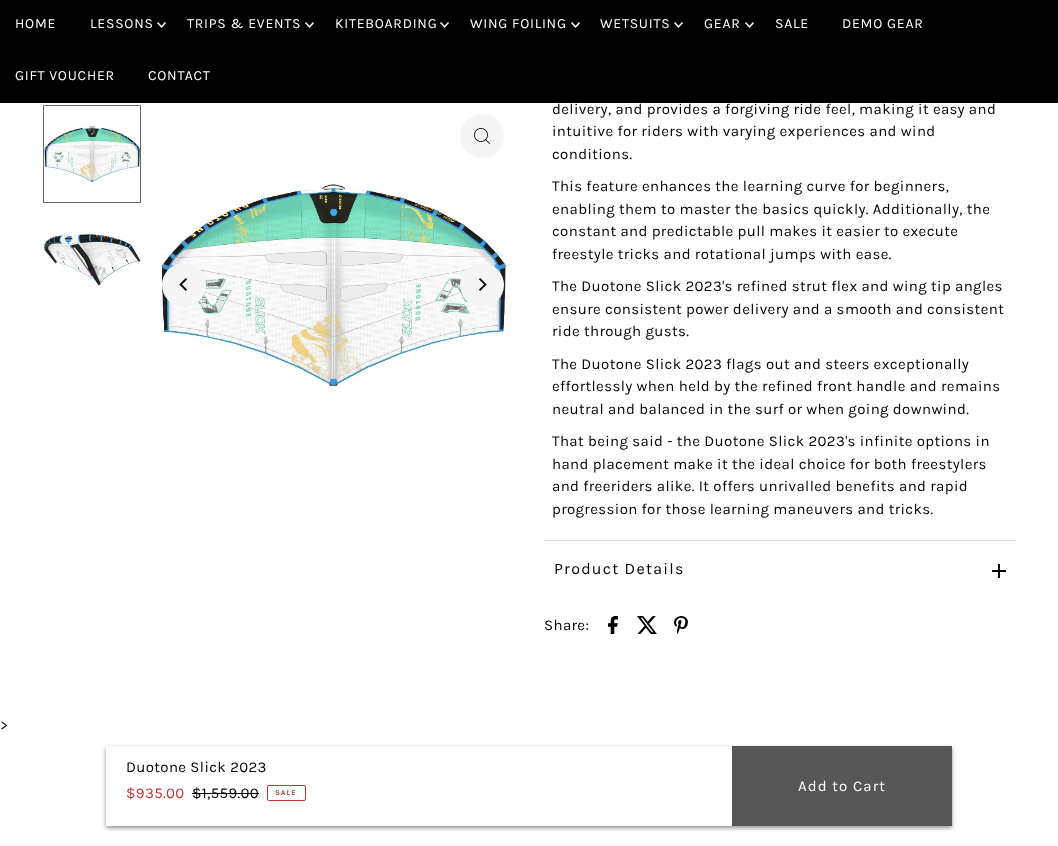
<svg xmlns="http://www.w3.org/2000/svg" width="1058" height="846">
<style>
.a{font:14px Karla;letter-spacing:0.75px;fill:#fff}
.b{font:15px Karla;letter-spacing:0.38px;fill:#000}
.c{font:16px Karla;letter-spacing:1.25px;fill:#000}
.d{font:15px Karla;letter-spacing:0.38px;fill:#c13636}
.e{font:bold 7.5px Karla;letter-spacing:1px;fill:#c13636}
.f{font:15px Karla;letter-spacing:1.1px;fill:#fff}
</style>
<rect width="100%" height="100%" fill="#fff"/>
<path fill="#000" d="M0 0h1058v103H0z"/>
<image href="1.png" x="157" y="22" width="9" height="6"/>
<image href="1.png" x="305" y="22" width="9" height="6"/>
<image href="1.png" x="440" y="22" width="9" height="6"/>
<image href="1.png" x="571" y="22" width="9" height="6"/>
<image href="1.png" x="674" y="22" width="9" height="6"/>
<image href="1.png" x="745" y="22" width="9" height="6"/>
<image href="2.png" x="44" y="125" width="98" height="59"/>
<path fill="none" stroke="#666" d="M43.5 105.5h97v97H43.5z"/>
<image href="3.png" x="42" y="233" width="100" height="52"/>
<circle fill="#f5f5f5" cx="482" cy="136" r="22"/>
<image href="4.png" x="474" y="128" width="16" height="16"/>
<image href="5.png" x="161" y="184" width="346" height="204"/>
<circle fill="#f5f5f5" cx="184" cy="285" r="22"/>
<image href="6.png" x="179" y="278" width="8" height="13"/>
<circle fill="#f5f5f5" cx="482" cy="285" r="22"/>
<image href="7.png" x="479" y="278" width="8" height="13"/>
<path fill="#ddd" d="M544 540h472v1H544z"/>
<image href="8.png" x="992" y="564" width="14" height="14"/>
<image href="9.png" x="608" y="616" width="10" height="18"/>
<image href="10.png" x="637" y="616" width="20" height="18"/>
<image href="11.png" x="674" y="616" width="14" height="18"/>
<path fill="#22222280" filter="blur(2px)" d="M106 748h846v80H106z"/>
<path fill="#fff" d="M106 746h626v80H106z"/>
<path fill="#000" d="M192 793h67v1H192z"/>
<rect fill="none" stroke="#c13636" x="267.5" y="785.5" width="38" height="15" rx="1.5"/>
<path fill="#565656" d="M732 746h220v80H732z"/>
<text class="a" x="15" y="28">HOME</text>
<text class="a" x="90" y="28">LESSONS</text>
<text class="a" x="187" y="28">TRIPS &amp; EVENTS</text>
<text class="a" x="335" y="28">KITEBOARDING</text>
<text class="a" x="470" y="28">WING FOILING</text>
<text class="a" x="600" y="28">WETSUITS</text>
<text class="a" x="704" y="28">GEAR</text>
<text class="a" x="775" y="28">SALE</text>
<text class="a" x="842" y="28">DEMO GEAR</text>
<text class="a" x="15" y="80">GIFT VOUCHER</text>
<text class="a" x="148" y="80">CONTACT</text>
<text class="b" x="0" y="730">&gt;</text>
<text class="b" x="552" y="114">delivery, and provides a forgiving ride feel, making it easy and</text>
<text class="b" x="552" y="136">intuitive for riders with varying experiences and wind</text>
<text class="b" x="552" y="159">conditions.</text>
<text class="b" x="552" y="191">This feature enhances the learning curve for beginners,</text>
<text class="b" x="552" y="214">enabling them to master the basics quickly. Additionally, the</text>
<text class="b" x="552" y="236">constant and predictable pull makes it easier to execute</text>
<text class="b" x="552" y="259">freestyle tricks and rotational jumps with ease.</text>
<text class="b" x="552" y="291">The Duotone Slick 2023's refined strut flex and wing tip angles</text>
<text class="b" x="552" y="314">ensure consistent power delivery and a smooth and consistent</text>
<text class="b" x="552" y="336">ride through gusts.</text>
<text class="b" x="552" y="369">The Duotone Slick 2023 flags out and steers exceptionally</text>
<text class="b" x="552" y="391">effortlessly when held by the refined front handle and remains</text>
<text class="b" x="552" y="414">neutral and balanced in the surf or when going downwind.</text>
<text class="b" x="552" y="446">That being said - the Duotone Slick 2023's infinite options in</text>
<text class="b" x="552" y="469">hand placement make it the ideal choice for both freestylers</text>
<text class="b" x="552" y="491">and freeriders alike. It offers unrivalled benefits and rapid</text>
<text class="b" x="552" y="514">progression for those learning maneuvers and tricks.</text>
<text class="c" x="554" y="574">Product Details</text>
<text class="b" x="544" y="630">Share:</text>
<text class="b" x="126" y="772">Duotone Slick 2023</text>
<text class="d" x="126" y="798">$935.00</text>
<text class="b" x="192" y="798">$1,559.00</text>
<text class="e" x="275" y="795">SALE</text>
<text class="f" x="798" y="791">Add to Cart</text>
</svg>
